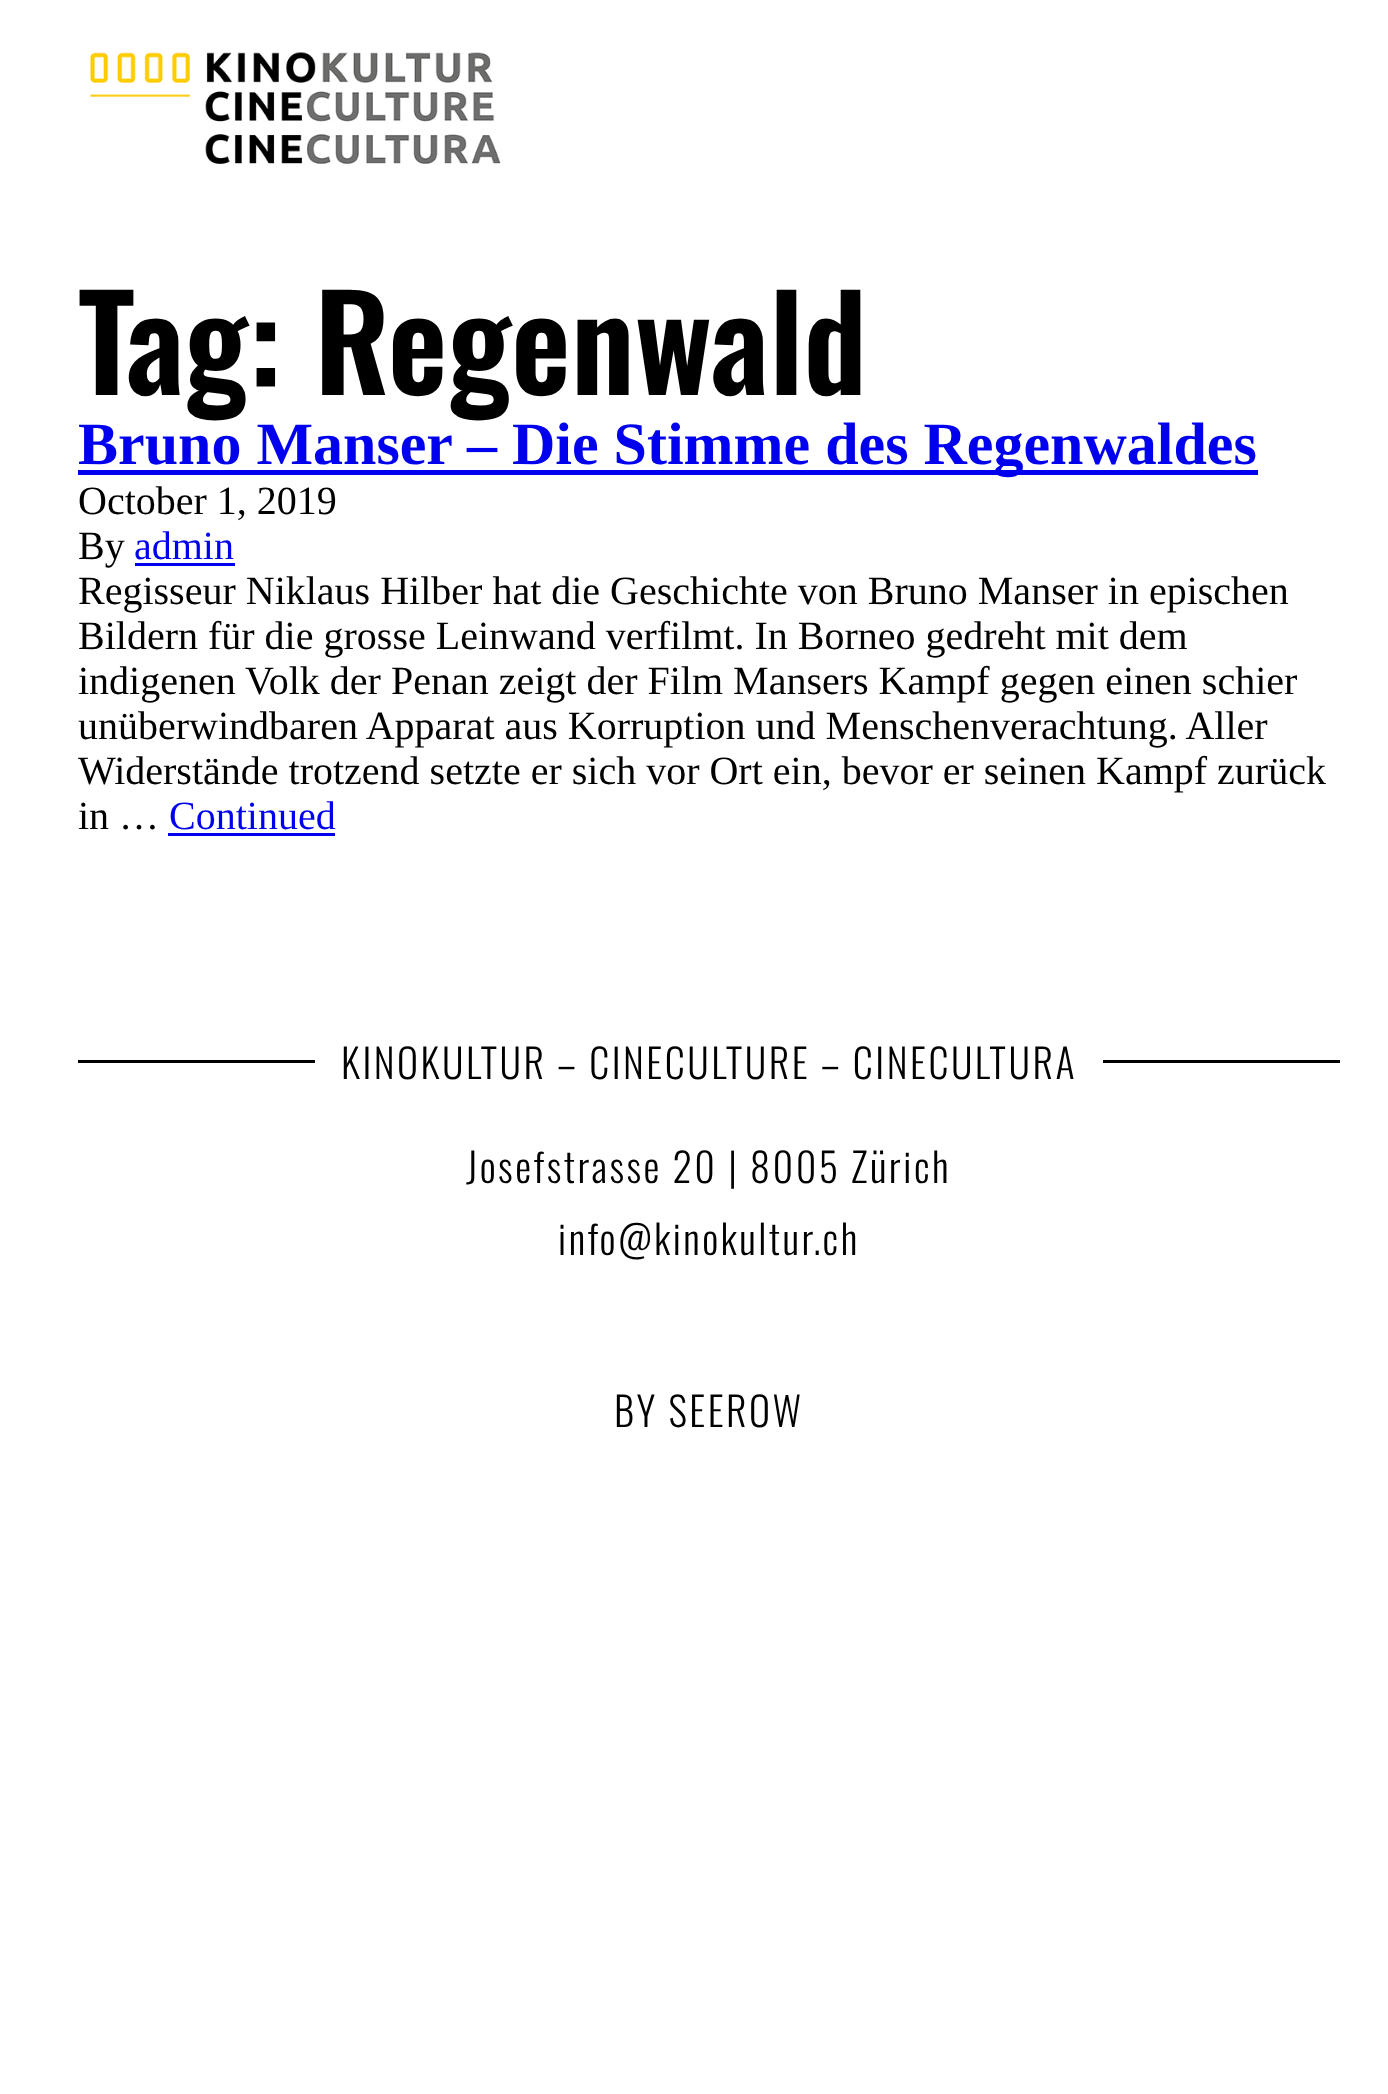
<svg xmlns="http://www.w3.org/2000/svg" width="1388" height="2094">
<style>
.a{font:600 130px Oswald;fill:#000}
.b{font:bold 60px Liberation Serif;fill:#00e}
.c{font:40px Liberation Serif;fill:#000}
.d{font:40px Liberation Serif;fill:#00e}
.e{font:300 40px Oswald;letter-spacing:2.5px;fill:#000}
</style>
<rect width="100%" height="100%" fill="#fff"/>
<image href="1.png" x="90" y="52" width="411" height="112"/>
<path fill="#00e" d="M78 470h1180v5H78z"/>
<path fill="#00e" d="M135 563h100v3H135z"/>
<path fill="#00e" d="M168 833h167v3H168z"/>
<path fill="#000" d="M78 1060h1262v3H78z"/>
<path fill="#fff" d="M315 1060h788v3H315z"/>
<text class="a" x="78" y="395">Tag: Regenwald</text>
<text class="b" x="78" y="464">Bruno Manser – Die Stimme des Regenwaldes</text>
<text class="c" x="78" y="514">October 1, 2019</text>
<text class="c" x="78" y="559">By</text>
<text class="d" x="134" y="559">admin</text>
<text class="c" x="78" y="604">Regisseur Niklaus Hilber hat die Geschichte von Bruno Manser in epischen</text>
<text class="c" x="78" y="649">Bildern für die grosse Leinwand verfilmt. In Borneo gedreht mit dem</text>
<text class="c" x="78" y="694">indigenen Volk der Penan zeigt der Film Mansers Kampf gegen einen schier</text>
<text class="c" x="78" y="739">unüberwindbaren Apparat aus Korruption und Menschenverachtung. Aller</text>
<text class="c" x="78" y="784">Widerstände trotzend setzte er sich vor Ort ein, bevor er seinen Kampf zurück</text>
<text class="c" x="78" y="829">in …</text>
<text class="d" x="169" y="829">Continued</text>
<text class="e" x="341" y="1079">KINOKULTUR – CINECULTURE – CINECULTURA</text>
<text class="e" x="466" y="1183">Josefstrasse 20 | 8005 Zürich</text>
<text class="e" x="558" y="1255">info@kinokultur.ch</text>
<text class="e" x="614" y="1427">BY SEEROW</text>
</svg>
